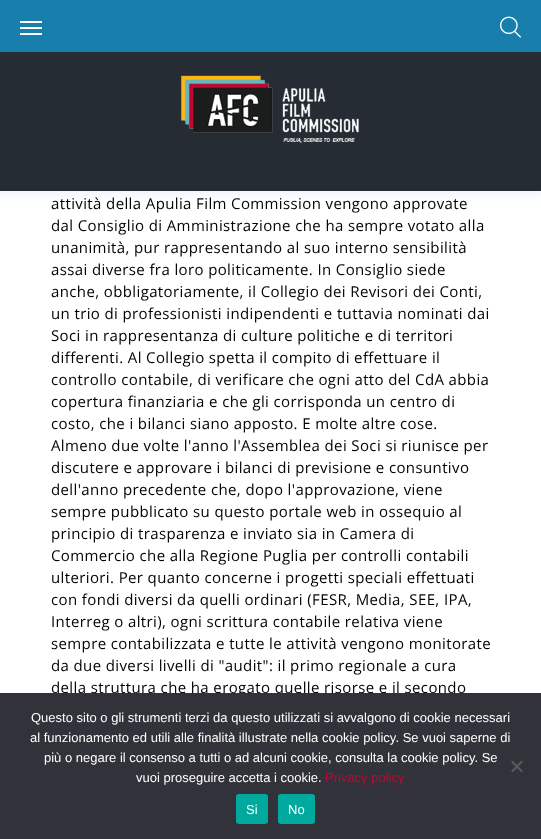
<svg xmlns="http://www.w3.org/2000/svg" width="541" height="839">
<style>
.a{font:15px Open Sans;letter-spacing:0.38px;fill:#020202}
.b{font:13px Liberation Sans;fill:#fff}
.c{font:13px Liberation Sans;fill:#c20633}
</style>
<rect width="100%" height="100%" fill="#fff"/>
<path fill="#187fac0f" filter="blur(5px)" d="M-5 35h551v161H-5z"/>
<path fill="#187fac" d="M0 0h541v52H0z"/>
<path fill="#fff" d="M20 27h22v2H20z"/>
<path fill="#fff" d="M20 21h22v2H20z"/>
<path fill="#fff" d="M20 33h22v2H20z"/>
<image href="1.png" x="500" y="16" width="21" height="22"/>
<path fill="#262c33" d="M0 52h541v139H0z"/>
<image href="2.png" x="181" y="75" width="178" height="68"/>
<text class="a" x="51" y="209">attività della Apulia Film Commission vengono approvate</text>
<text class="a" x="51" y="231">dal Consiglio di Amministrazione che ha sempre votato alla</text>
<text class="a" x="51" y="253">unanimità, pur rappresentando al suo interno sensibilità</text>
<text class="a" x="51" y="275">assai diverse fra loro politicamente. In Consiglio siede</text>
<text class="a" x="51" y="297">anche, obbligatoriamente, il Collegio dei Revisori dei Conti,</text>
<text class="a" x="51" y="319">un trio di professionisti indipendenti e tuttavia nominati dai</text>
<text class="a" x="51" y="341">Soci in rappresentanza di culture politiche e di territori</text>
<text class="a" x="51" y="363">differenti. Al Collegio spetta il compito di effettuare il</text>
<text class="a" x="51" y="385">controllo contabile, di verificare che ogni atto del CdA abbia</text>
<text class="a" x="51" y="407">copertura finanziaria e che gli corrisponda un centro di</text>
<text class="a" x="51" y="429">costo, che i bilanci siano apposto. E molte altre cose.</text>
<text class="a" x="51" y="451">Almeno due volte l'anno l'Assemblea dei Soci si riunisce per</text>
<text class="a" x="51" y="473">discutere e approvare i bilanci di previsione e consuntivo</text>
<text class="a" x="51" y="495">dell'anno precedente che, dopo l'approvazione, viene</text>
<text class="a" x="51" y="517">sempre pubblicato su questo portale web in ossequio al</text>
<text class="a" x="51" y="539">principio di trasparenza e inviato sia in Camera di</text>
<text class="a" x="51" y="561">Commercio che alla Regione Puglia per controlli contabili</text>
<text class="a" x="51" y="583">ulteriori. Per quanto concerne i progetti speciali effettuati</text>
<text class="a" x="51" y="605">con fondi diversi da quelli ordinari (FESR, Media, SEE, IPA,</text>
<text class="a" x="51" y="627">Interreg o altri), ogni scrittura contabile relativa viene</text>
<text class="a" x="51" y="649">sempre contabilizzata e tutte le attività vengono monitorate</text>
<text class="a" x="51" y="671">da due diversi livelli di "audit": il primo regionale a cura</text>
<text class="a" x="51" y="693">della struttura che ha erogato quelle risorse e il secondo</text>
<path fill="#32323a" d="M0 693h541v146H0z"/>
<text class="b" x="31" y="722">Questo sito o gli strumenti terzi da questo utilizzati si avvalgono di cookie necessari</text>
<text class="b" x="30" y="742">al funzionamento ed utili alle finalità illustrate nella cookie policy. Se vuoi saperne di</text>
<text class="b" x="44" y="762">più o negare il consenso a tutti o ad alcuni cookie, consulta la cookie policy. Se</text>
<text class="b" x="136" y="782">vuoi proseguire accetta i cookie.</text>
<text class="c" x="325" y="782">Privacy policy</text>
<path fill="#59595d" d="M521.5 760.5l1.5 1.5l-10.5 10.5l-1.5-1.5z"/>
<path fill="#59595d" d="M511 762l1.5-1.5l10.5 10.5l-1.5 1.5z"/>
<rect fill="#00a99d" x="236" y="794" width="32" height="30" rx="3"/>
<text class="b" x="246" y="814">Si</text>
<rect fill="#00a99d" x="278" y="794" width="37" height="30" rx="3"/>
<text class="b" x="288" y="814">No</text>
</svg>
